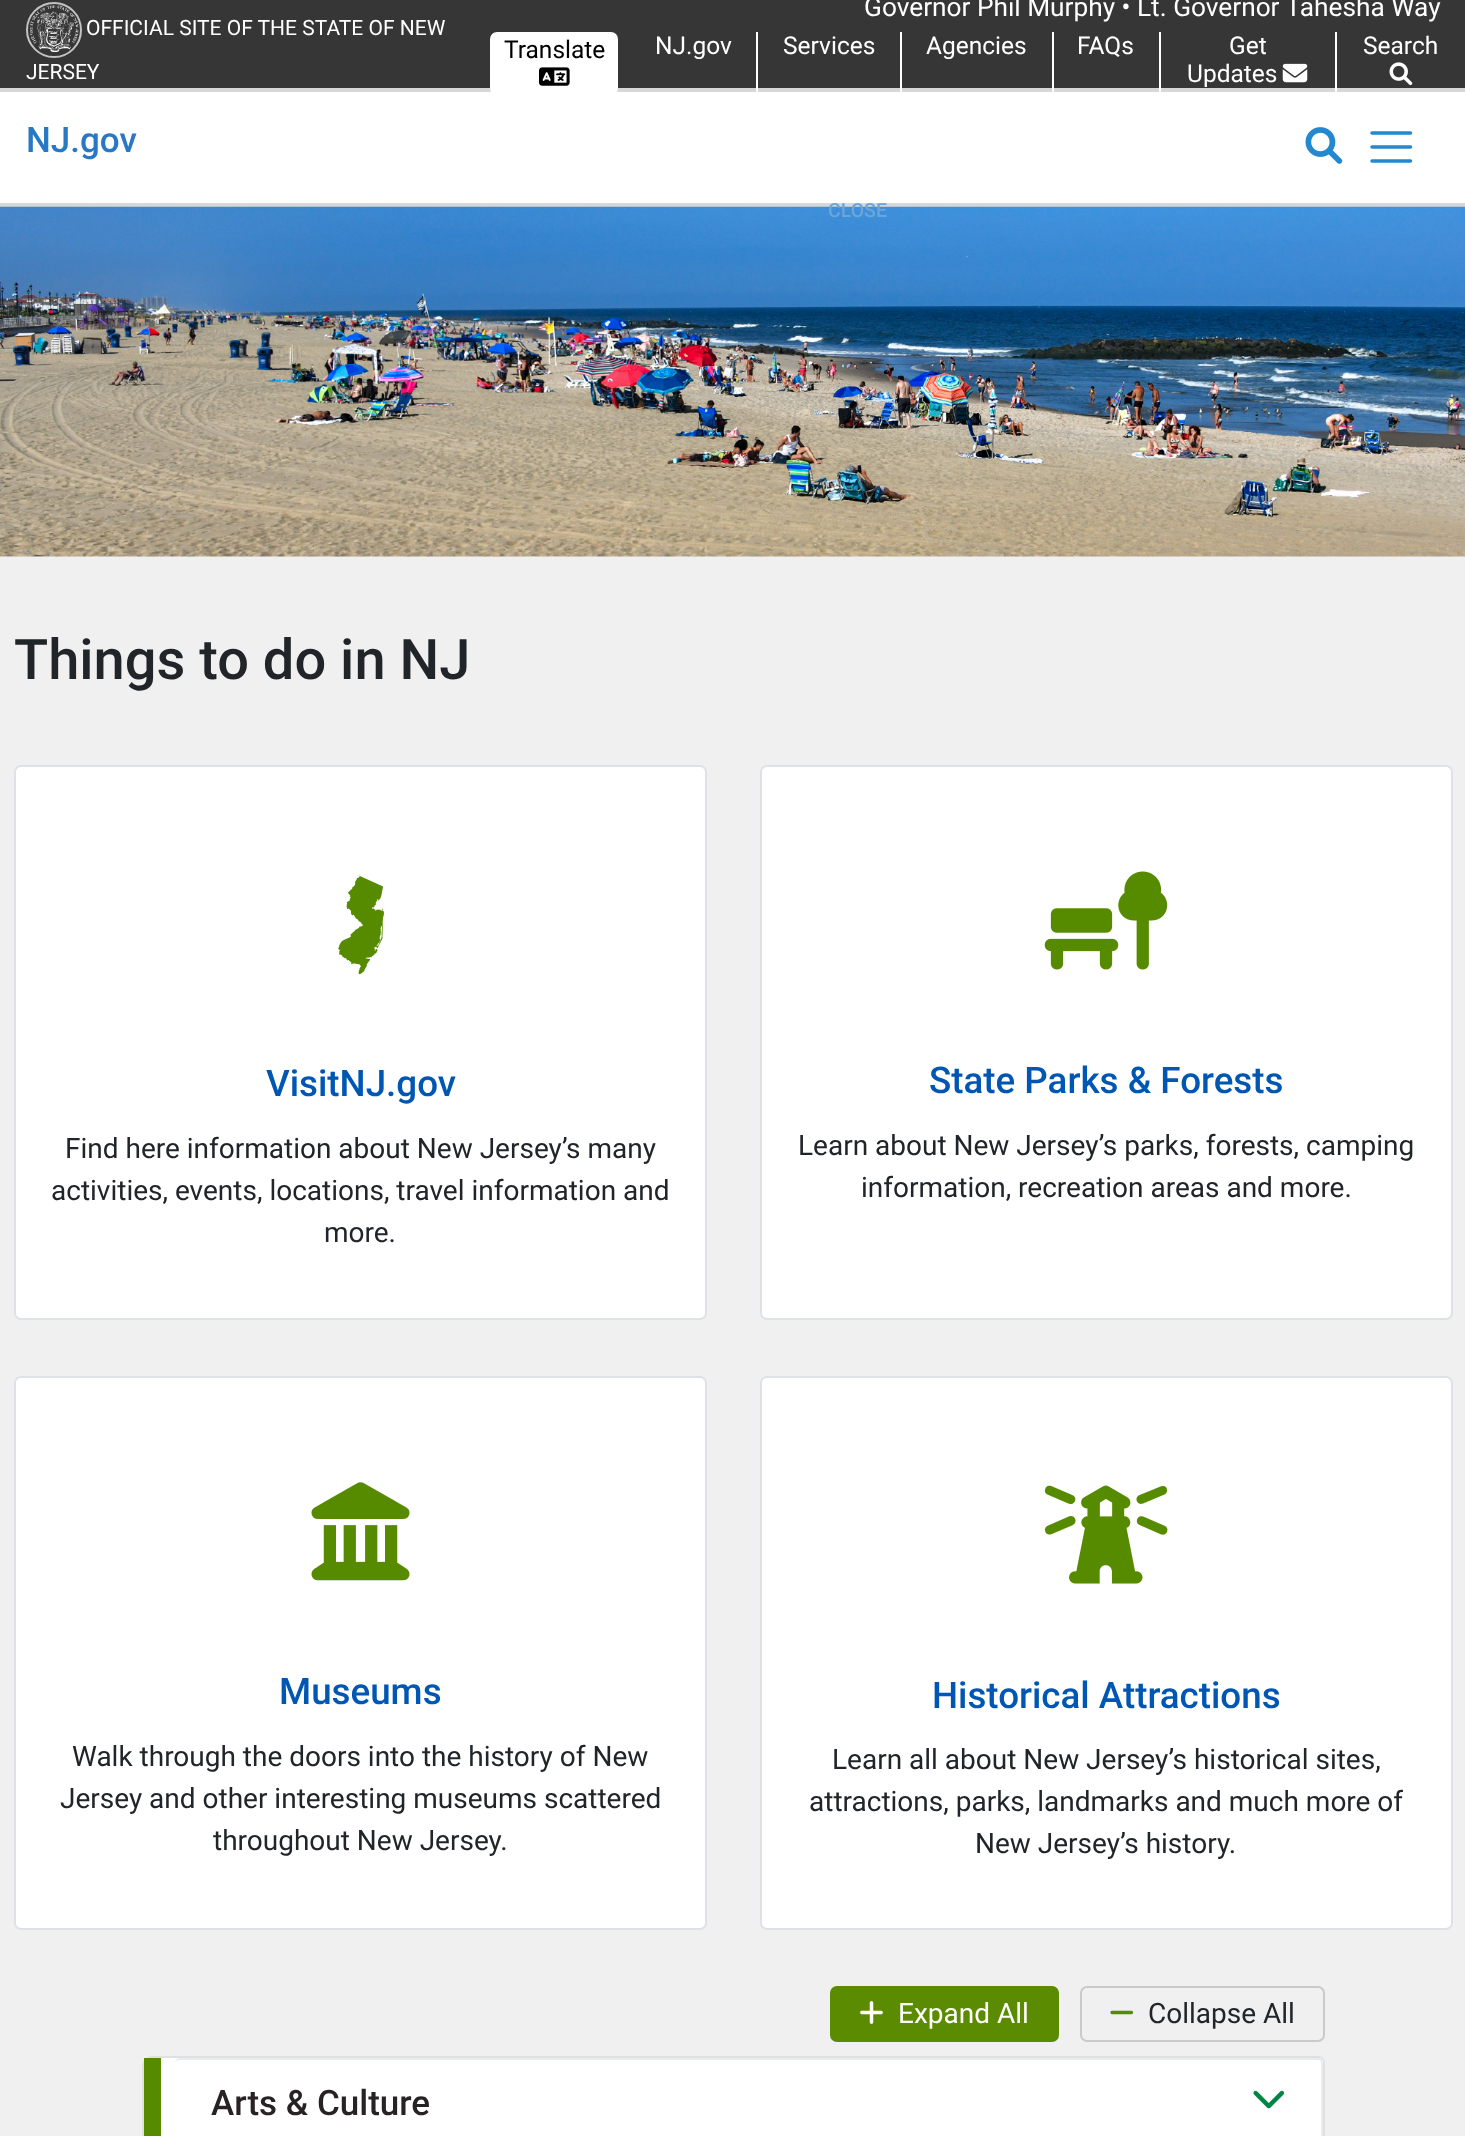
<svg xmlns="http://www.w3.org/2000/svg" width="1465" height="2136">
<style>
.a{font:21px Roboto;fill:#fff}
.b{font:26.25px Roboto;fill:#fff}
.c{font:24.5px Roboto;fill:#fff}
.d{font:24.5px Roboto;fill:#000}
.e{font:500 19.5px Roboto;fill:#6ba5d9}
.f{font:500 35px Roboto;fill:#2878c3}
.g{font:500 56px Roboto;fill:#212529}
.h{font:500 36.75px Roboto;fill:#0056b3}
.i{font:28px Roboto;fill:#212529}
.j{font:28px Roboto;fill:#fff}
.k{font:500 35px Roboto;fill:#272223}
</style>
<rect width="100%" height="100%" fill="#fff"/>
<path fill="#363636" d="M0 0h1465v88H0z"/>
<image href="1.png" x="30" y="5" width="49" height="47"/>
<circle fill="none" stroke="#c3c3c3" stroke-width="2" cx="54" cy="30" r="27"/>
<path fill="#d7d7d7" d="M0 88h1465v4H0z"/>
<path fill="#fff" d="M756 32h2v63H756z"/>
<path fill="#fff" d="M900 32h2v63H900z"/>
<path fill="#fff" d="M1052 32h2v63H1052z"/>
<path fill="#fff" d="M1159 32h2v63H1159z"/>
<path fill="#fff" d="M1335 32h2v63H1335z"/>
<image href="2.png" x="1282" y="63" width="26" height="20"/>
<image href="3.png" x="1389" y="62" width="24" height="24"/>
<rect fill="#fff" x="490" y="32" width="128" height="63" rx="7"/>
<image href="4.png" x="539" y="67" width="31" height="19"/>
<path fill="#d7d7d7" d="M0 203h1465v4H0z"/>
<image href="5.png" x="1305" y="127" width="38" height="37"/>
<path fill="none" stroke="#2288cf" stroke-width="3.5" stroke-linecap="round" d="M1372 133h38.5m-38.5 14h38.5m-38.5 14h38.5"/>
<path fill="#f0f0f0" d="M0 556h1465v1580H0z"/>
<image href="6.png" x="0" y="206" width="1465" height="351"/>
<rect fill="#fff" stroke="#dee2e6" stroke-width="2" x="15" y="766" width="691" height="553" rx="6"/>
<image href="7.png" x="338" y="875" width="46" height="100"/>
<rect fill="#fff" stroke="#dee2e6" stroke-width="2" x="761" y="766" width="691" height="553" rx="6"/>
<image href="8.png" x="1044" y="871" width="124" height="99"/>
<rect fill="#fff" stroke="#dee2e6" stroke-width="2" x="15" y="1377" width="691" height="552" rx="6"/>
<image href="9.png" x="311" y="1482" width="99" height="99"/>
<rect fill="#fff" stroke="#dee2e6" stroke-width="2" x="761" y="1377" width="691" height="552" rx="6"/>
<image href="10.png" x="1044" y="1485" width="124" height="99"/>
<rect fill="#5a8b00" stroke="#5a8b00" stroke-width="2" x="831" y="1987" width="227" height="54" rx="6"/>
<image href="11.png" x="860" y="2001" width="23" height="23"/>
<rect fill="none" stroke="#cacaca" stroke-width="2" x="1081" y="1987" width="243" height="54" rx="6"/>
<image href="12.png" x="1110" y="2010" width="24" height="5"/>
<path fill="#fff" d="M153 2056h1165c4 0 7 3 7 7v73c0 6-5 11-11 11h-1161c-6 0-11-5-11-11v-69c0-6 5-11 11-11z"/>
<path fill="none" stroke="#0000001f" stroke-width="2" d="M153 2057h1165c3.5 0 6 2.5 6 6v73c0 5.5-4.5 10-10 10h-1161c-5.5 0-10-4.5-10-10v-69c0-5.5 4.5-10 10-10z"/>
<path fill="#568b00" d="M144 2058h17v78H144z"/>
<path fill="#fff" d="M180 2058h1138c3 0 5 2 5 5v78h-1148v-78c0-3 2-5 5-5z"/>
<path fill="#e9ecef" fill-rule="evenodd" d="M180 2058h1138c3 0 5 2 5 5v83h-1148v-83c0-3 2-5 5-5zm0 2h1138c2 0 3 1 3 3v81h-1146v-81c0-2 2-3 5-3z"/>
<image href="13.png" x="1253" y="2090" width="31" height="19"/>
<text class="a" x="86" y="35">OFFICIAL SITE OF THE STATE OF NEW</text>
<text class="a" x="26" y="79">JERSEY</text>
<text class="b" x="864" y="16">Governor Phil Murphy • Lt. Governor Tahesha Way</text>
<text class="c" x="655" y="54">NJ.gov</text>
<text class="c" x="783" y="54">Services</text>
<text class="c" x="926" y="54">Agencies</text>
<text class="c" x="1077" y="54">FAQs</text>
<text class="c" x="1229" y="54">Get</text>
<text class="c" x="1187" y="82">Updates</text>
<text class="c" x="1363" y="54">Search</text>
<text class="d" x="504" y="58">Translate</text>
<text class="e" x="828" y="217">CLOSE</text>
<text class="f" x="26" y="152">NJ.gov</text>
<text class="g" x="14" y="679">Things to do in NJ</text>
<text class="h" x="266" y="1096">VisitNJ.gov</text>
<text class="i" x="65" y="1158">Find here information about New Jersey’s many</text>
<text class="i" x="51" y="1200">activities, events, locations, travel information and</text>
<text class="i" x="324" y="1242">more.</text>
<text class="h" x="929" y="1093">State Parks &amp; Forests</text>
<text class="i" x="798" y="1155">Learn about New Jersey’s parks, forests, camping</text>
<text class="i" x="861" y="1197">information, recreation areas and more.</text>
<text class="h" x="279" y="1704">Museums</text>
<text class="i" x="72" y="1766">Walk through the doors into the history of New</text>
<text class="i" x="60" y="1808">Jersey and other interesting museums scattered</text>
<text class="i" x="213" y="1850">throughout New Jersey.</text>
<text class="h" x="932" y="1708">Historical Attractions</text>
<text class="i" x="832" y="1769">Learn all about New Jersey’s historical sites,</text>
<text class="i" x="809" y="1811">attractions, parks, landmarks and much more of</text>
<text class="i" x="975" y="1853">New Jersey’s history.</text>
<text class="j" x="898" y="2023">Expand All</text>
<text class="i" x="1148" y="2023">Collapse All</text>
<text class="k" x="211" y="2115">Arts &amp; Culture</text>
</svg>
